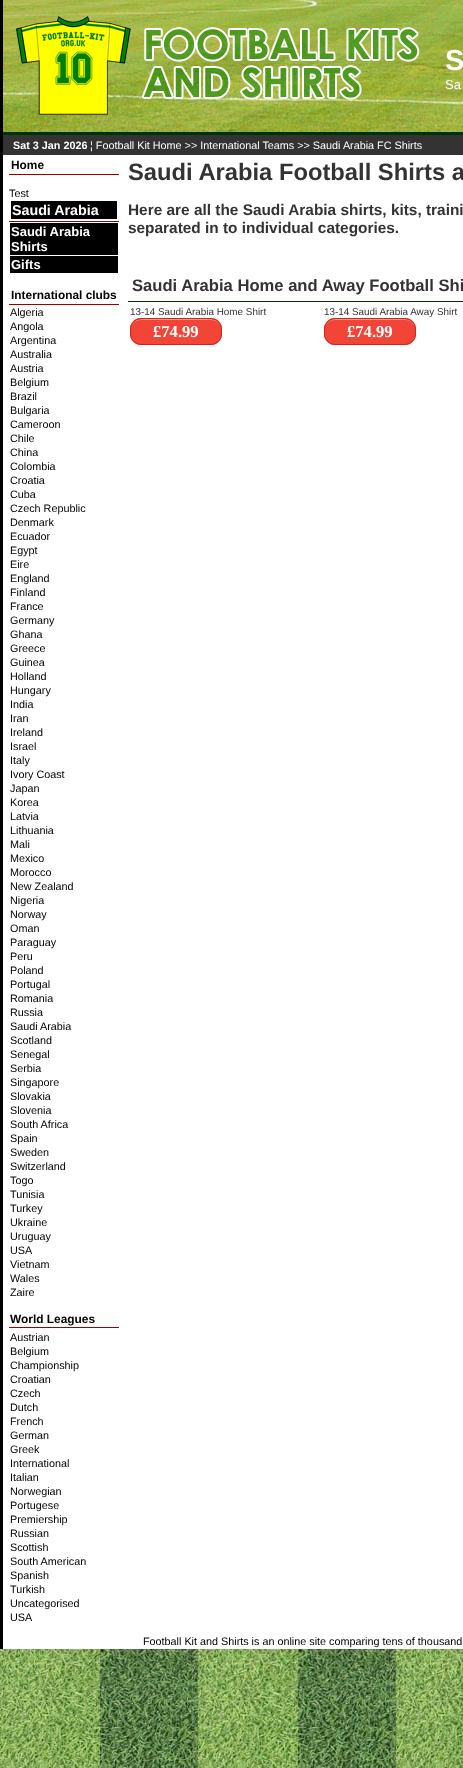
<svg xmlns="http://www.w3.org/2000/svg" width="463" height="1768">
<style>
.a{font:bold 29px Liberation Sans;fill:#fff}
.b{font:13px Liberation Sans;fill:#fff}
.c{font:bold 10.8px Liberation Sans;fill:#fff}
.d{font:10.8px Liberation Sans;fill:#fff}
.e{font:bold 11.9px Liberation Sans;fill:#000}
.f{font:10.8px Liberation Sans;fill:#000}
.g{font:bold 14.25px Liberation Sans;fill:#fff}
.h{font:bold 13px Liberation Sans;fill:#fff}
.i{font:bold 23.75px Liberation Sans;fill:#333}
.j{font:bold 15.4px Liberation Sans;fill:#333}
.k{font:bold 16.6px Liberation Sans;fill:#333}
.l{font:9.9px Liberation Sans;fill:#333}
.m{font:bold 16.6px Liberation Serif;fill:#fff}
</style>
<rect width="100%" height="100%" fill="#fff"/>
<image href="1.png" x="0" y="1649" width="463" height="119"/>
<path fill="#000" d="M0 0h3v1649H0z"/>
<path fill="#030" d="M3 132h460v3H3z"/>
<image href="2.png" x="3" y="0" width="460" height="132"/>
<image href="3.png" x="16" y="16" width="404" height="99"/>
<path fill="#333" d="M3 135h460v20H3z"/>
<path fill="#900" d="M9 174h110v1H9z"/>
<path fill="#900" d="M9 221h110v1H9z"/>
<path fill="#000" d="M11 201h106v18H11z"/>
<path fill="#000" d="M10 223h108v32H10z"/>
<path fill="#000" d="M10 256h108v17H10z"/>
<path fill="#900" d="M9 304h110v1H9z"/>
<path fill="#900" d="M9 1327h110v1H9z"/>
<path fill="#030" d="M128 301h335v1H128z"/>
<rect fill="#f24537" x="130" y="318" width="92" height="27" rx="11"/>
<path fill="#f5978e" d="M141 320h70c6 0 10 4 10 10c0-13-12-11-22-11h-46c-10 0-22-2-22 11c0-6 4-10 10-10z"/>
<rect fill="none" stroke="#d02718" x="130.5" y="318.5" width="91" height="26" rx="10.5"/>
<rect fill="#f24537" x="324" y="318" width="92" height="27" rx="11"/>
<path fill="#f5978e" d="M335 320h70c6 0 10 4 10 10c0-13-12-11-22-11h-46c-10 0-22-2-22 11c0-6 4-10 10-10z"/>
<rect fill="none" stroke="#d02718" x="324.5" y="318.5" width="91" height="26" rx="10.5"/>
<text class="a" x="445" y="70">S</text>
<text class="b" x="445" y="89">Sa</text>
<text class="c" x="13" y="149">Sat 3 Jan 2026</text>
<text class="d" x="90" y="149">¦ Football Kit Home &gt;&gt; International Teams &gt;&gt; Saudi Arabia FC Shirts</text>
<text class="e" x="11" y="169">Home</text>
<text class="f" x="9" y="197">Test</text>
<text class="g" x="12" y="215">Saudi Arabia</text>
<text class="h" x="11" y="236">Saudi Arabia</text>
<text class="h" x="11" y="251">Shirts</text>
<text class="h" x="11" y="269">Gifts</text>
<text class="e" x="11" y="299">International clubs</text>
<text class="f" x="10" y="316">Algeria</text>
<text class="f" x="10" y="330">Angola</text>
<text class="f" x="10" y="344">Argentina</text>
<text class="f" x="10" y="358">Australia</text>
<text class="f" x="10" y="372">Austria</text>
<text class="f" x="10" y="386">Belgium</text>
<text class="f" x="10" y="400">Brazil</text>
<text class="f" x="10" y="414">Bulgaria</text>
<text class="f" x="10" y="428">Cameroon</text>
<text class="f" x="10" y="442">Chile</text>
<text class="f" x="10" y="456">China</text>
<text class="f" x="10" y="470">Colombia</text>
<text class="f" x="10" y="484">Croatia</text>
<text class="f" x="10" y="498">Cuba</text>
<text class="f" x="10" y="512">Czech Republic</text>
<text class="f" x="10" y="526">Denmark</text>
<text class="f" x="10" y="540">Ecuador</text>
<text class="f" x="10" y="554">Egypt</text>
<text class="f" x="10" y="568">Eire</text>
<text class="f" x="10" y="582">England</text>
<text class="f" x="10" y="596">Finland</text>
<text class="f" x="10" y="610">France</text>
<text class="f" x="10" y="624">Germany</text>
<text class="f" x="10" y="638">Ghana</text>
<text class="f" x="10" y="652">Greece</text>
<text class="f" x="10" y="666">Guinea</text>
<text class="f" x="10" y="680">Holland</text>
<text class="f" x="10" y="694">Hungary</text>
<text class="f" x="10" y="708">India</text>
<text class="f" x="10" y="722">Iran</text>
<text class="f" x="10" y="736">Ireland</text>
<text class="f" x="10" y="750">Israel</text>
<text class="f" x="10" y="764">Italy</text>
<text class="f" x="10" y="778">Ivory Coast</text>
<text class="f" x="10" y="792">Japan</text>
<text class="f" x="10" y="806">Korea</text>
<text class="f" x="10" y="820">Latvia</text>
<text class="f" x="10" y="834">Lithuania</text>
<text class="f" x="10" y="848">Mali</text>
<text class="f" x="10" y="862">Mexico</text>
<text class="f" x="10" y="876">Morocco</text>
<text class="f" x="10" y="890">New Zealand</text>
<text class="f" x="10" y="904">Nigeria</text>
<text class="f" x="10" y="918">Norway</text>
<text class="f" x="10" y="932">Oman</text>
<text class="f" x="10" y="946">Paraguay</text>
<text class="f" x="10" y="960">Peru</text>
<text class="f" x="10" y="974">Poland</text>
<text class="f" x="10" y="988">Portugal</text>
<text class="f" x="10" y="1002">Romania</text>
<text class="f" x="10" y="1016">Russia</text>
<text class="f" x="10" y="1030">Saudi Arabia</text>
<text class="f" x="10" y="1044">Scotland</text>
<text class="f" x="10" y="1058">Senegal</text>
<text class="f" x="10" y="1072">Serbia</text>
<text class="f" x="10" y="1086">Singapore</text>
<text class="f" x="10" y="1100">Slovakia</text>
<text class="f" x="10" y="1114">Slovenia</text>
<text class="f" x="10" y="1128">South Africa</text>
<text class="f" x="10" y="1142">Spain</text>
<text class="f" x="10" y="1156">Sweden</text>
<text class="f" x="10" y="1170">Switzerland</text>
<text class="f" x="10" y="1184">Togo</text>
<text class="f" x="10" y="1198">Tunisia</text>
<text class="f" x="10" y="1212">Turkey</text>
<text class="f" x="10" y="1226">Ukraine</text>
<text class="f" x="10" y="1240">Uruguay</text>
<text class="f" x="10" y="1254">USA</text>
<text class="f" x="10" y="1268">Vietnam</text>
<text class="f" x="10" y="1282">Wales</text>
<text class="f" x="10" y="1296">Zaire</text>
<text class="e" x="10" y="1323">World Leagues</text>
<text class="f" x="10" y="1341">Austrian</text>
<text class="f" x="10" y="1355">Belgium</text>
<text class="f" x="10" y="1369">Championship</text>
<text class="f" x="10" y="1383">Croatian</text>
<text class="f" x="10" y="1397">Czech</text>
<text class="f" x="10" y="1411">Dutch</text>
<text class="f" x="10" y="1425">French</text>
<text class="f" x="10" y="1439">German</text>
<text class="f" x="10" y="1453">Greek</text>
<text class="f" x="10" y="1467">International</text>
<text class="f" x="10" y="1481">Italian</text>
<text class="f" x="10" y="1495">Norwegian</text>
<text class="f" x="10" y="1509">Portugese</text>
<text class="f" x="10" y="1523">Premiership</text>
<text class="f" x="10" y="1537">Russian</text>
<text class="f" x="10" y="1551">Scottish</text>
<text class="f" x="10" y="1565">South American</text>
<text class="f" x="10" y="1579">Spanish</text>
<text class="f" x="10" y="1593">Turkish</text>
<text class="f" x="10" y="1607">Uncategorised</text>
<text class="f" x="10" y="1621">USA</text>
<text class="i" x="128" y="180">Saudi Arabia Football Shirts a</text>
<text class="j" x="128" y="215">Here are all the Saudi Arabia shirts, kits, traini</text>
<text class="j" x="128" y="233">separated in to individual categories.</text>
<text class="k" x="132" y="291">Saudi Arabia Home and Away Football Shi</text>
<text class="l" x="130" y="315">13-14 Saudi Arabia Home Shirt</text>
<text class="m" x="153" y="337">£74.99</text>
<text class="l" x="324" y="315">13-14 Saudi Arabia Away Shirt</text>
<text class="m" x="347" y="337">£74.99</text>
<text class="f" x="143" y="1645">Football Kit and Shirts is an online site comparing tens of thousand</text>
</svg>
